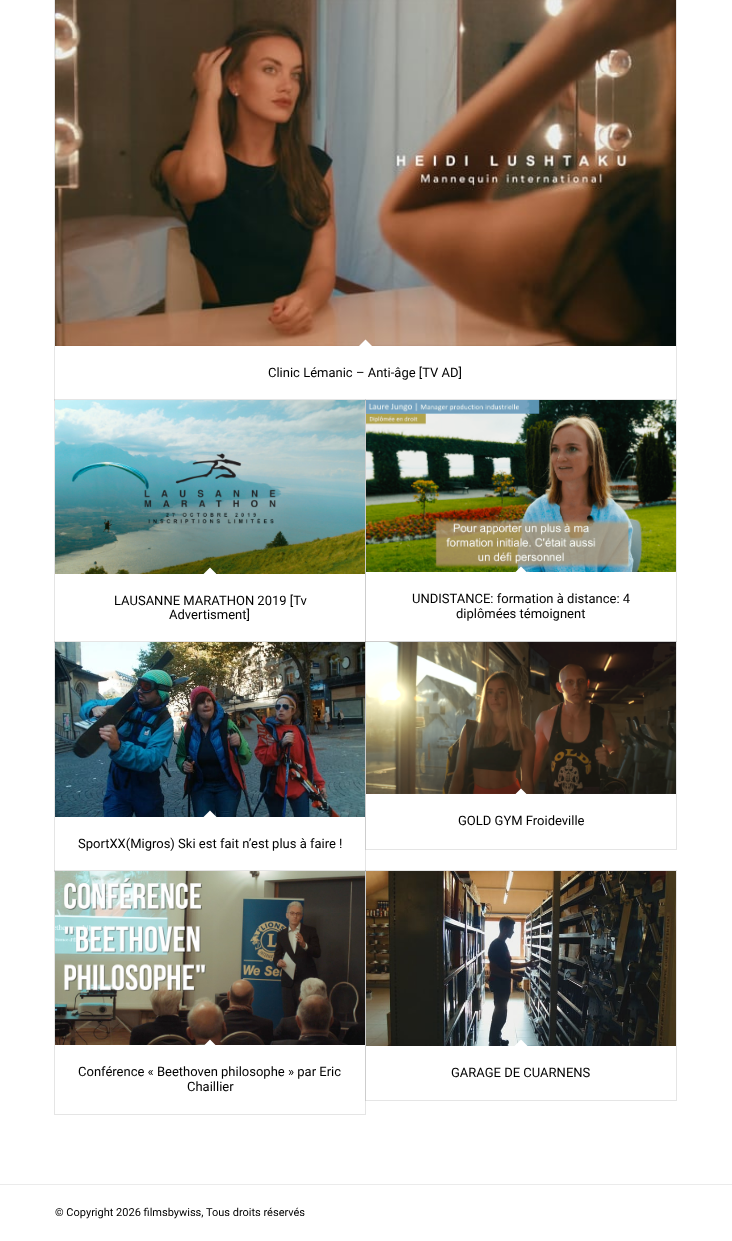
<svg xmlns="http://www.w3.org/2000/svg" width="732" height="1241">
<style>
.a{font:13px Roboto;fill:#000}
.b{font:11px Roboto;fill:#000}
</style>
<rect width="100%" height="100%" fill="#fff"/>
<path fill="none" stroke="#e6e6e6" d="M54.5 -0.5h622v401H54.5z"/>
<image href="1.png" x="55" y="0" width="621" height="346"/>
<path fill="#fff" d="M365.5 339.5l7 7l-7 7l-7-7z"/>
<path fill="none" stroke="#0000001a" d="M54.5 399.5h311v243H54.5z"/>
<image href="2.png" x="55" y="400" width="310" height="174"/>
<path fill="#fff" d="M210 567.5l7 7l-7 7l-7-7z"/>
<path fill="none" stroke="#0000001a" d="M365.5 399.5h311v242H365.5z"/>
<image href="3.png" x="366" y="400" width="310" height="172"/>
<path fill="#fff" d="M521 566.5l7 7l-7 7l-7-7z"/>
<path fill="none" stroke="#0000001a" d="M54.5 641.5h311v230H54.5z"/>
<path fill="none" stroke="#0000001a" d="M365.5 641.5h311v208H365.5z"/>
<image href="4.png" x="366" y="642" width="310" height="152"/>
<path fill="#fff" d="M521 788.5l7 7l-7 7l-7-7z"/>
<image href="5.png" x="55" y="642" width="310" height="175"/>
<path fill="#fff" d="M210 810.5l7 7l-7 7.5l-7-7.5z"/>
<path fill="none" stroke="#0000001a" d="M54.5 870.5h311v244H54.5z"/>
<path fill="#fff" d="M55 871h310v1H55z"/>
<image href="6.png" x="55" y="871" width="310" height="174"/>
<path fill="#fff" d="M210 1039.5l7 7l-7 7l-7-7z"/>
<path fill="none" stroke="#0000001a" d="M365.5 870.5h311v230H365.5z"/>
<image href="7.png" x="366" y="871" width="310" height="175"/>
<path fill="#fff" d="M521 1039.5l7 7l-7 7l-7-7z"/>
<path fill="#ebebeb" d="M0 1184h732v1H0z"/>
<text class="a" x="268" y="377">Clinic Lémanic – Anti-âge [TV AD]</text>
<text class="a" x="114" y="605">LAUSANNE MARATHON 2019 [Tv</text>
<text class="a" x="169" y="619">Advertisment]</text>
<text class="a" x="412" y="603">UNDISTANCE: formation à distance: 4</text>
<text class="a" x="456" y="618">diplômées témoignent</text>
<text class="a" x="458" y="825">GOLD GYM Froideville</text>
<text class="a" x="78" y="848">SportXX(Migros) Ski est fait n’est plus à faire !</text>
<text class="a" x="78" y="1076">Conférence « Beethoven philosophe » par Eric</text>
<text class="a" x="187" y="1091">Chaillier</text>
<text class="a" x="451" y="1077">GARAGE DE CUARNENS</text>
<text class="b" x="55" y="1216">© Copyright 2026 filmsbywiss, Tous droits réservés</text>
</svg>
